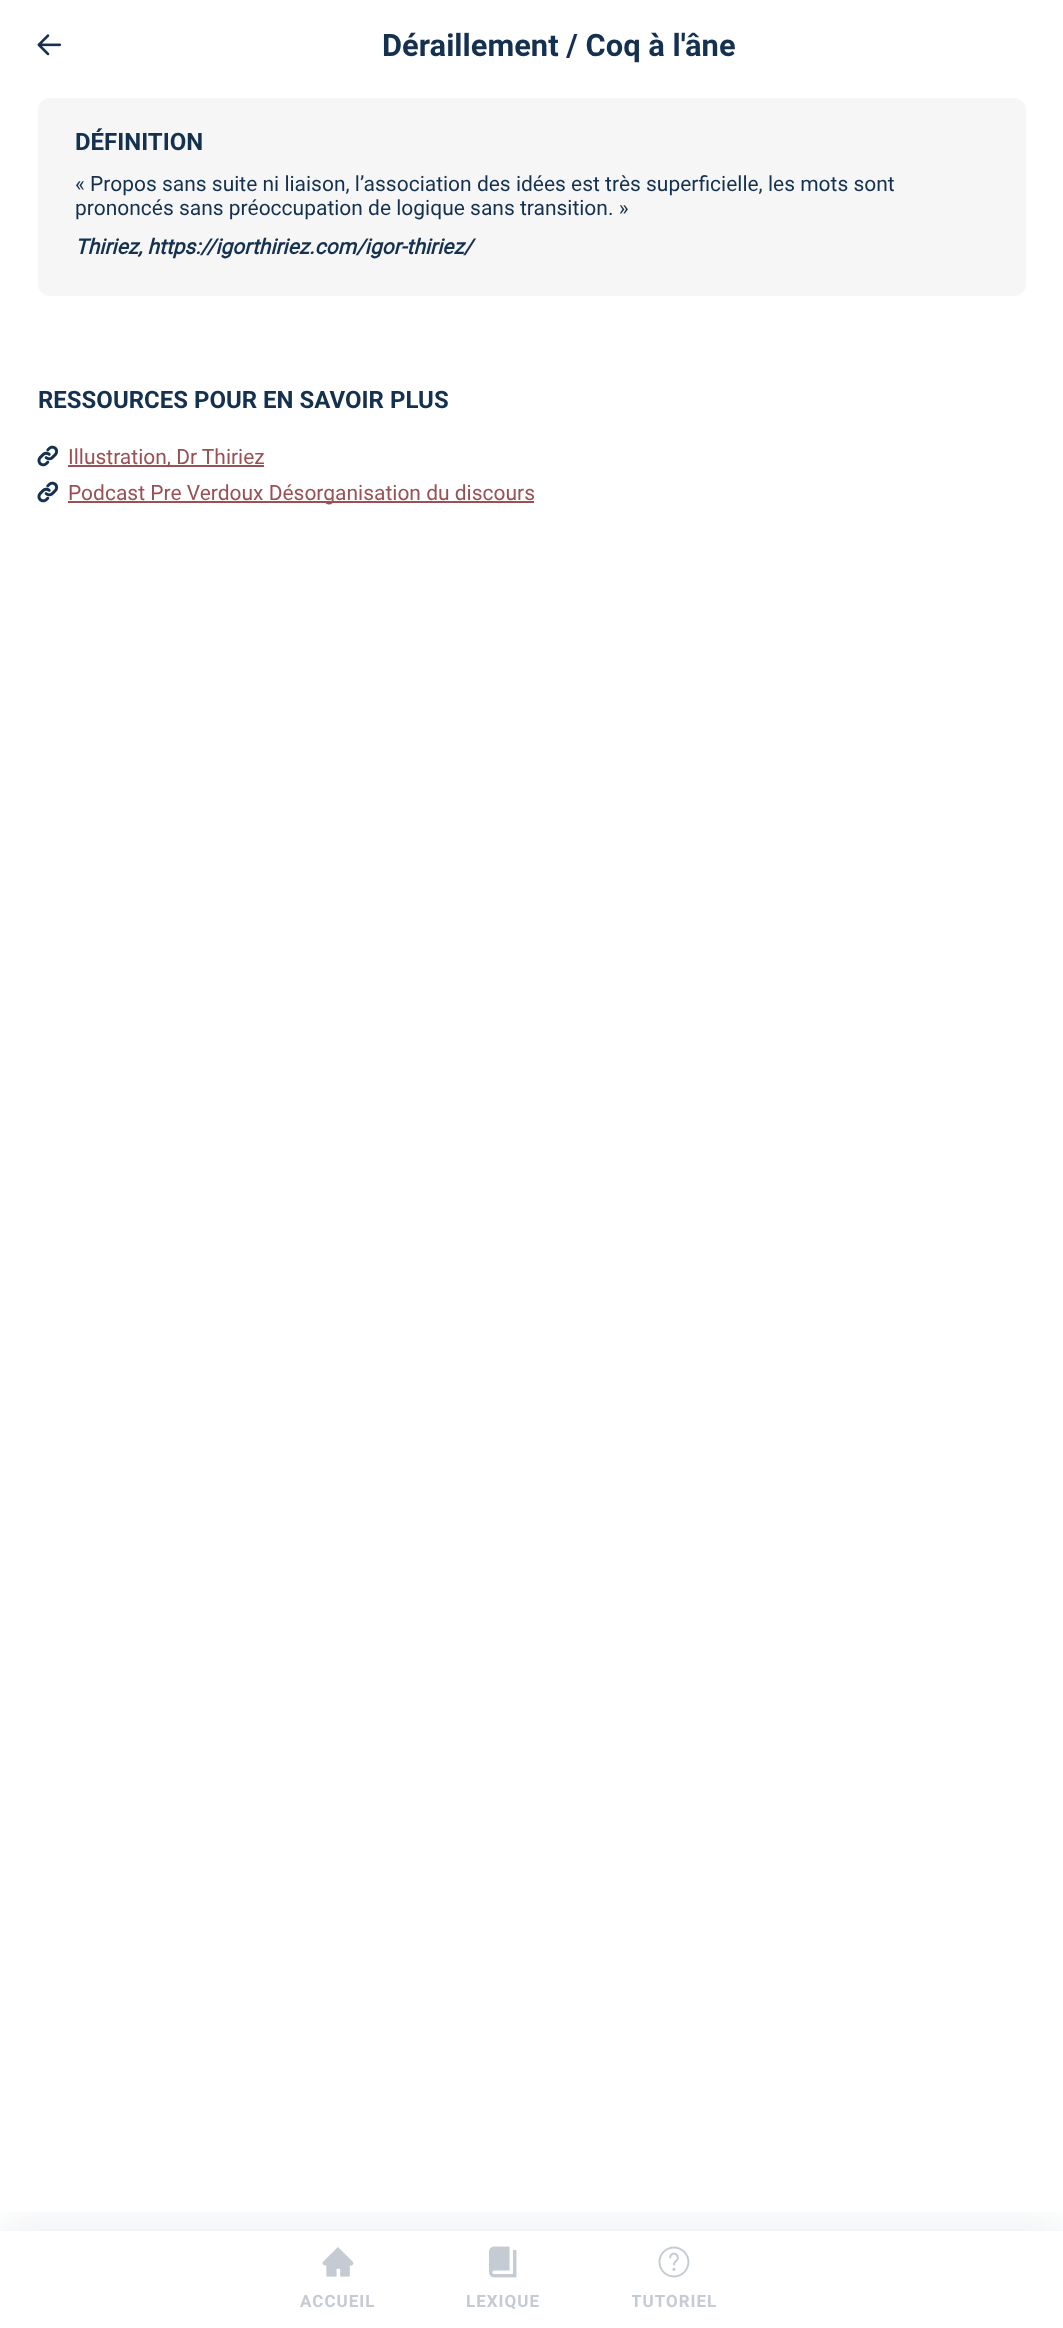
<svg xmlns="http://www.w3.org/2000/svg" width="1063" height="2328">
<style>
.a{font:bold 30.9px Roboto;fill:#153150}
.b{font:bold 24px Roboto;fill:#153150}
.c{font:21px Roboto;fill:#153150}
.d{font:italic bold 21px Roboto;fill:#153150}
.e{font:21px Roboto;fill:#9a5054}
.f{font:bold 17px Roboto;letter-spacing:1px;fill:#c4cbd3}
</style>
<defs>
<clipPath id="clip1"><path d="M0 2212h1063v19H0z"/></clipPath>
<clipPath id="clip2"><path d="M632 2231h87v97H632z"/></clipPath>
</defs>
<rect width="100%" height="100%" fill="#fff"/>
<image href="1.png" x="37" y="34" width="25" height="22"/>
<rect fill="#f6f6f6" x="38" y="98" width="988" height="198" rx="12"/>
<image href="2.png" x="37" y="445" width="22" height="22"/>
<path fill="#9a5054" d="M68 465h196v2H68z"/>
<image href="2.png" x="37" y="481" width="22" height="22"/>
<path fill="#9a5054" d="M68 501h466v2H68z"/>
<g clip-path="url(#clip1)">
<path fill="#1531501a" filter="blur(22.5px)" d="M0 2231h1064v97H0z"/>
</g>
<image href="3.png" x="322" y="2247" width="32" height="30"/>
<image href="4.png" x="489" y="2246" width="28" height="32"/>
<image href="5.png" x="658" y="2246" width="32" height="32"/>
<text class="a" x="382" y="56">Déraillement / Coq à l'âne</text>
<text class="b" x="75" y="150">DÉFINITION</text>
<text class="c" x="75" y="191">« Propos sans suite ni liaison, l’association des idées est très superficielle, les mots sont</text>
<text class="c" x="75" y="215">prononcés sans préoccupation de logique sans transition. »</text>
<text class="d" x="75" y="254">Thiriez, https://igorthiriez.com/igor-thiriez/</text>
<text class="b" x="38" y="408">RESSOURCES POUR EN SAVOIR PLUS</text>
<text class="e" x="68" y="464">Illustration, Dr Thiriez</text>
<text class="e" x="68" y="500">Podcast Pre Verdoux Désorganisation du discours</text>
<text class="f" x="300" y="2307">ACCUEIL</text>
<text class="f" x="466" y="2307">LEXIQUE</text>
<g clip-path="url(#clip2)">
<text class="f" x="631" y="2307">TUTORIEL</text>
</g>
</svg>
